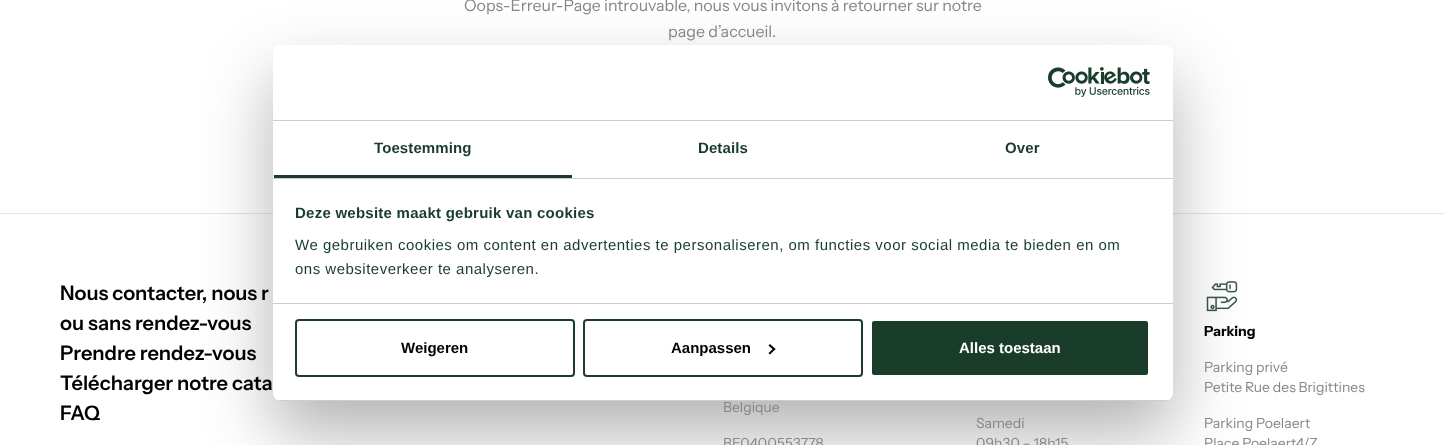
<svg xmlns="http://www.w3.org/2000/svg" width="1445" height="445">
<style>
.a{font:16px Instrument Sans;fill:#868686}
.b{font:600 20px Instrument Sans;fill:#000}
.c{font:14px Instrument Sans;fill:#868686}
.d{font:bold 14px Instrument Sans;fill:#000}
.e{font:bold 15px Liberation Sans;letter-spacing:0.1px;fill:#1a3d2b}
.f{font:bold 15px Liberation Sans;letter-spacing:0.25px;fill:#1a3d2b}
.g{font:15px Liberation Sans;letter-spacing:0.5px;fill:#1a3d2b}
.h{font:bold 15px Liberation Sans;fill:#000}
.i{font:bold 15px Liberation Sans;fill:#fff}
</style>
<defs>
<clipPath id="clip1"><rect x="273" y="45" width="900" height="356" rx="8"/></clipPath>
</defs>
<rect width="100%" height="100%" fill="#fff"/>
<path fill="#e6e6e6" d="M0 213h1445v1H0z"/>
<image href="1.png" x="1206" y="281" width="32" height="31"/>
<rect fill="#0000004d" filter="blur(34px)" x="273" y="77" width="900" height="356" rx="8"/>
<rect fill="#fff" x="273" y="45" width="900" height="356" rx="8"/>
<path fill="#cdcdcd" d="M273 120h900v1H273z"/>
<image href="2.png" x="1048" y="67" width="102" height="30"/>
<path fill="#cdcdcd" d="M273 178h900v1H273z"/>
<path fill="#1a3d2b" d="M274 175h298v3H274z"/>
<path fill="#cdcdcd" d="M273 303h900v1H273z"/>
<g clip-path="url(#clip1)">
<path fill="#cdcdcd" d="M273 400h900v1H273z"/>
</g>
<rect fill="none" stroke="#1a3d2b" stroke-width="2" x="296" y="320" width="278" height="56" rx="3"/>
<rect fill="none" stroke="#1a3d2b" stroke-width="2" x="584" y="320" width="278" height="56" rx="3"/>
<path fill="#000" d="M770 344l5.5 5l-1.5 1.5l-5.5-5z"/>
<path fill="#000" d="M774 348l1.5 1l-5.5 5.5l-1.5-1.5z"/>
<rect fill="#1a3d2b" stroke="#fff" stroke-width="2" x="871" y="320" width="278" height="56" rx="3"/>
<text class="a" x="464" y="11">Oops-Erreur-Page introuvable, nous vous invitons à retourner sur notre</text>
<text class="a" x="668" y="37">page d’accueil.</text>
<text class="b" x="60" y="300">Nous contacter, nous r</text>
<text class="b" x="60" y="330">ou sans rendez-vous</text>
<text class="b" x="60" y="360">Prendre rendez-vous</text>
<text class="b" x="60" y="390">Télécharger notre cata</text>
<text class="b" x="60" y="420">FAQ</text>
<text class="c" x="723" y="412">Belgique</text>
<text class="c" x="723" y="448">BE0400553778</text>
<text class="c" x="976" y="428">Samedi</text>
<text class="c" x="976" y="448">09h30 – 18h15</text>
<text class="d" x="1204" y="336">Parking</text>
<text class="c" x="1204" y="372">Parking privé</text>
<text class="c" x="1204" y="392">Petite Rue des Brigittines</text>
<text class="c" x="1204" y="428">Parking Poelaert</text>
<text class="c" x="1204" y="448">Place Poelaert4/Z</text>
<text class="e" x="374" y="153">Toestemming</text>
<text class="e" x="698" y="153">Details</text>
<text class="e" x="1005" y="153">Over</text>
<text class="f" x="295" y="218">Deze website maakt gebruik van cookies</text>
<text class="g" x="295" y="250">We gebruiken cookies om content en advertenties te personaliseren, om functies voor social media te bieden en om</text>
<text class="g" x="295" y="274">ons websiteverkeer te analyseren.</text>
<text class="h" x="401" y="353">Weigeren</text>
<text class="h" x="671" y="353">Aanpassen</text>
<text class="i" x="959" y="353">Alles toestaan</text>
</svg>
